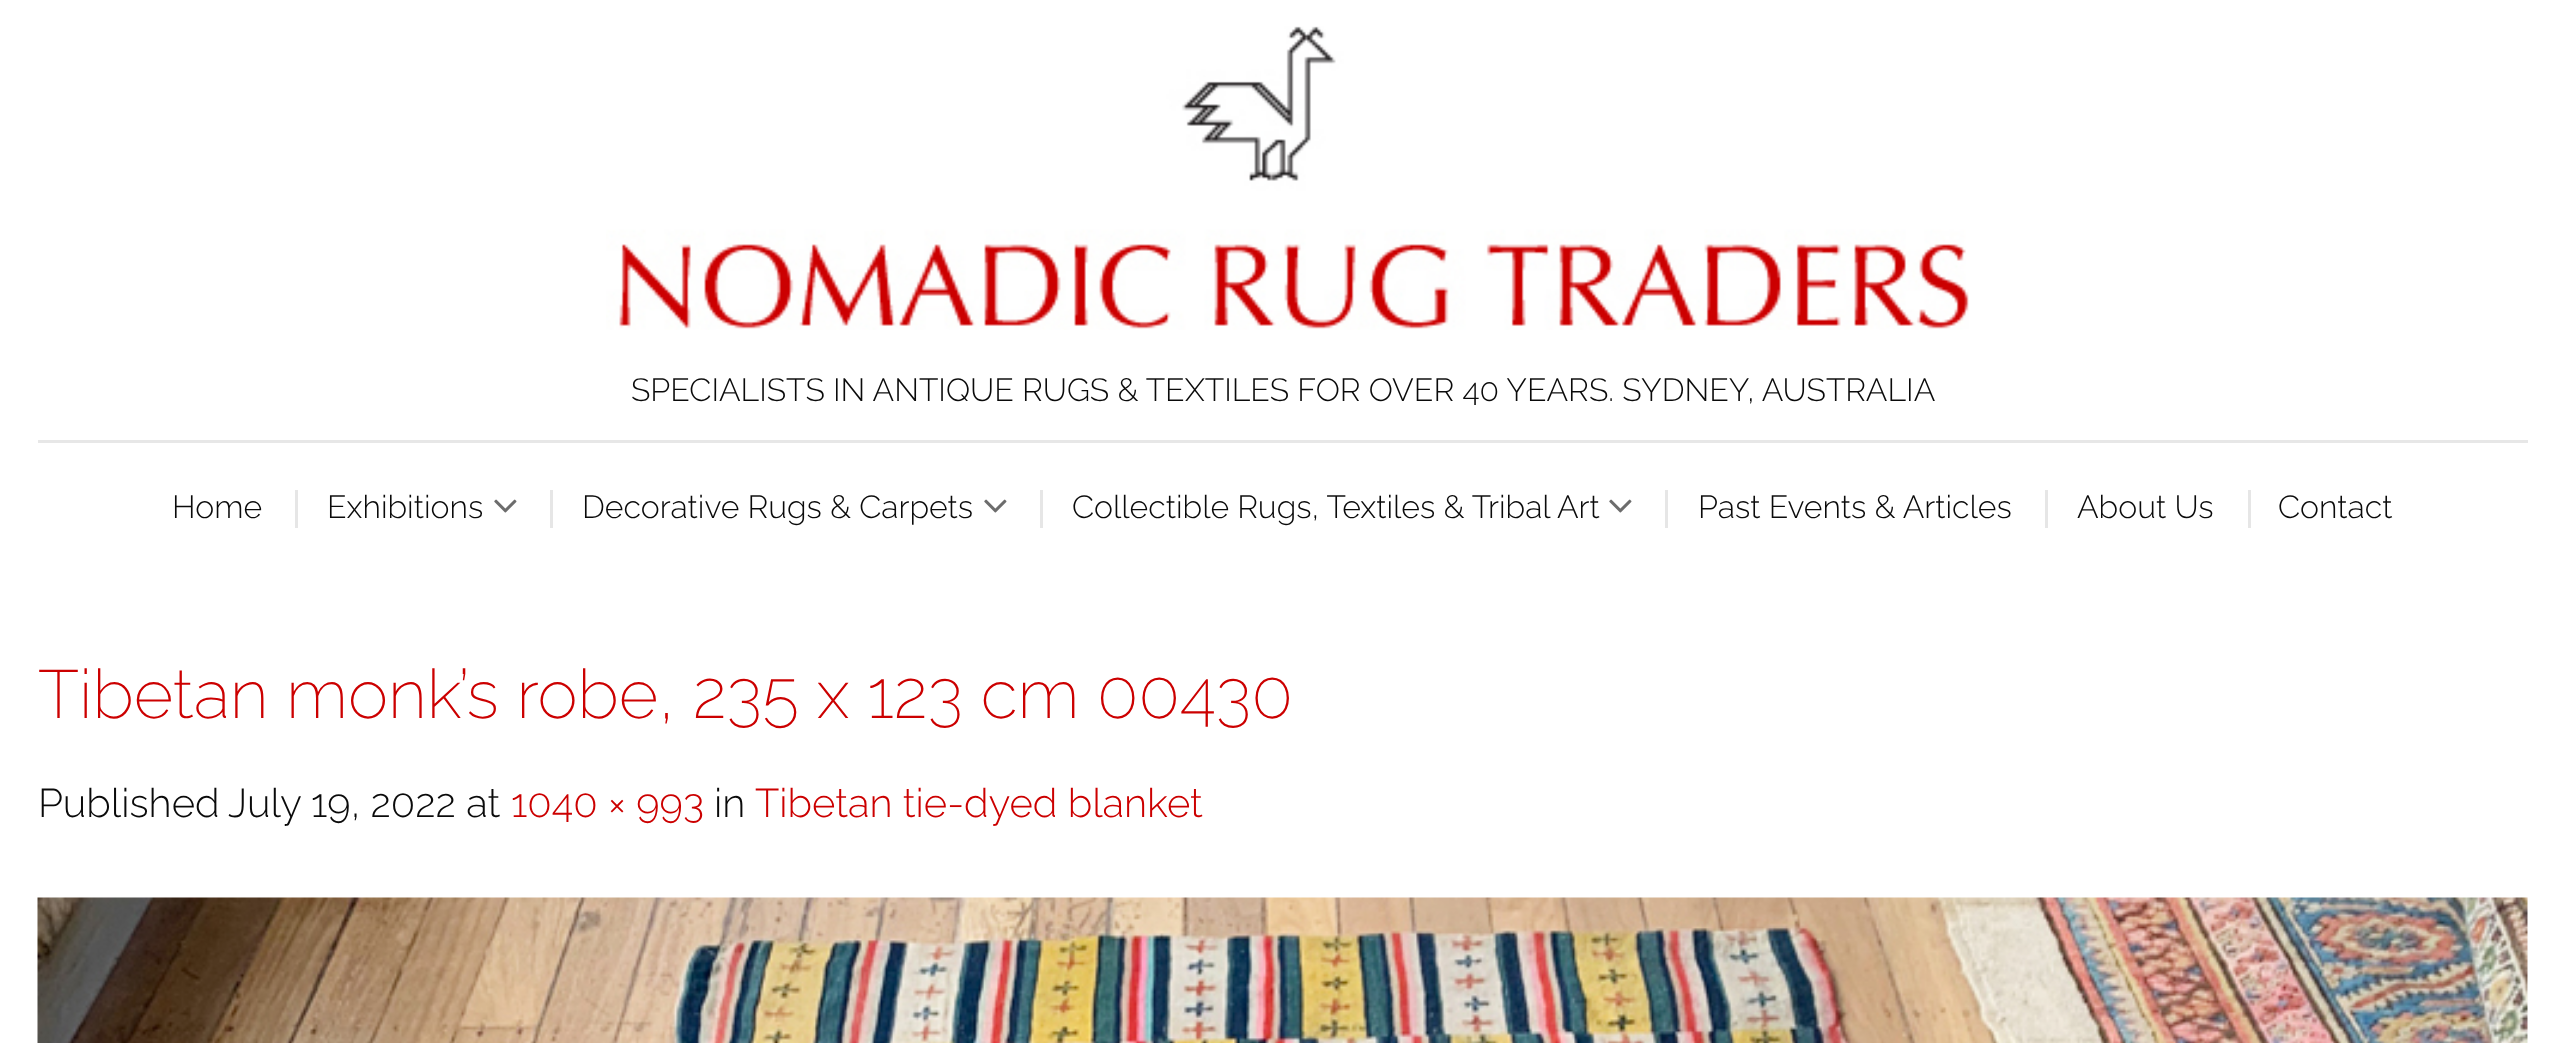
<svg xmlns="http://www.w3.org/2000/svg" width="2565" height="1043">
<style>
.a{font:300 32px Raleway;fill:#0a0a0a}
.b{font:200 68px Raleway;fill:#c00}
.c{font:300 40px Raleway;fill:#0a0a0a}
.d{font:300 40px Raleway;fill:#c00}
</style>
<rect width="100%" height="100%" fill="#fff"/>
<image href="1.png" x="606" y="26" width="1363" height="304"/>
<path fill="#e7e7e7" d="M38 440h2490v3H38z"/>
<path fill="#e6e6e6" d="M295 490h3v38H295z"/>
<image href="2.png" x="494" y="499" width="23" height="14"/>
<path fill="#e6e6e6" d="M550 490h3v38H550z"/>
<image href="2.png" x="984" y="499" width="23" height="14"/>
<path fill="#e6e6e6" d="M1040 490h3v38H1040z"/>
<image href="2.png" x="1609" y="499" width="23" height="14"/>
<path fill="#e6e6e6" d="M1665 490h3v38H1665z"/>
<path fill="#e6e6e6" d="M2045 490h3v38H2045z"/>
<path fill="#e6e6e6" d="M2248 490h3v38H2248z"/>
<image href="3.png" x="37" y="897" width="2491" height="146"/>
<text class="a" x="631" y="401">SPECIALISTS IN ANTIQUE RUGS &amp; TEXTILES FOR OVER 40 YEARS. SYDNEY, AUSTRALIA</text>
<text class="a" x="172" y="518">Home</text>
<text class="a" x="327" y="518">Exhibitions</text>
<text class="a" x="582" y="518">Decorative Rugs &amp; Carpets</text>
<text class="a" x="1072" y="518">Collectible Rugs, Textiles &amp; Tribal Art</text>
<text class="a" x="1698" y="518">Past Events &amp; Articles</text>
<text class="a" x="2077" y="518">About Us</text>
<text class="a" x="2278" y="518">Contact</text>
<text class="b" x="38" y="718">Tibetan monk’s robe, 235 x 123 cm 00430</text>
<text class="c" x="38" y="817">Published</text>
<text class="c" x="228" y="817">July 19, 2022 at</text>
<text class="d" x="511" y="817">1040 × 993</text>
<text class="c" x="714" y="817">in</text>
<text class="d" x="755" y="817">Tibetan tie-dyed blanket</text>
</svg>
